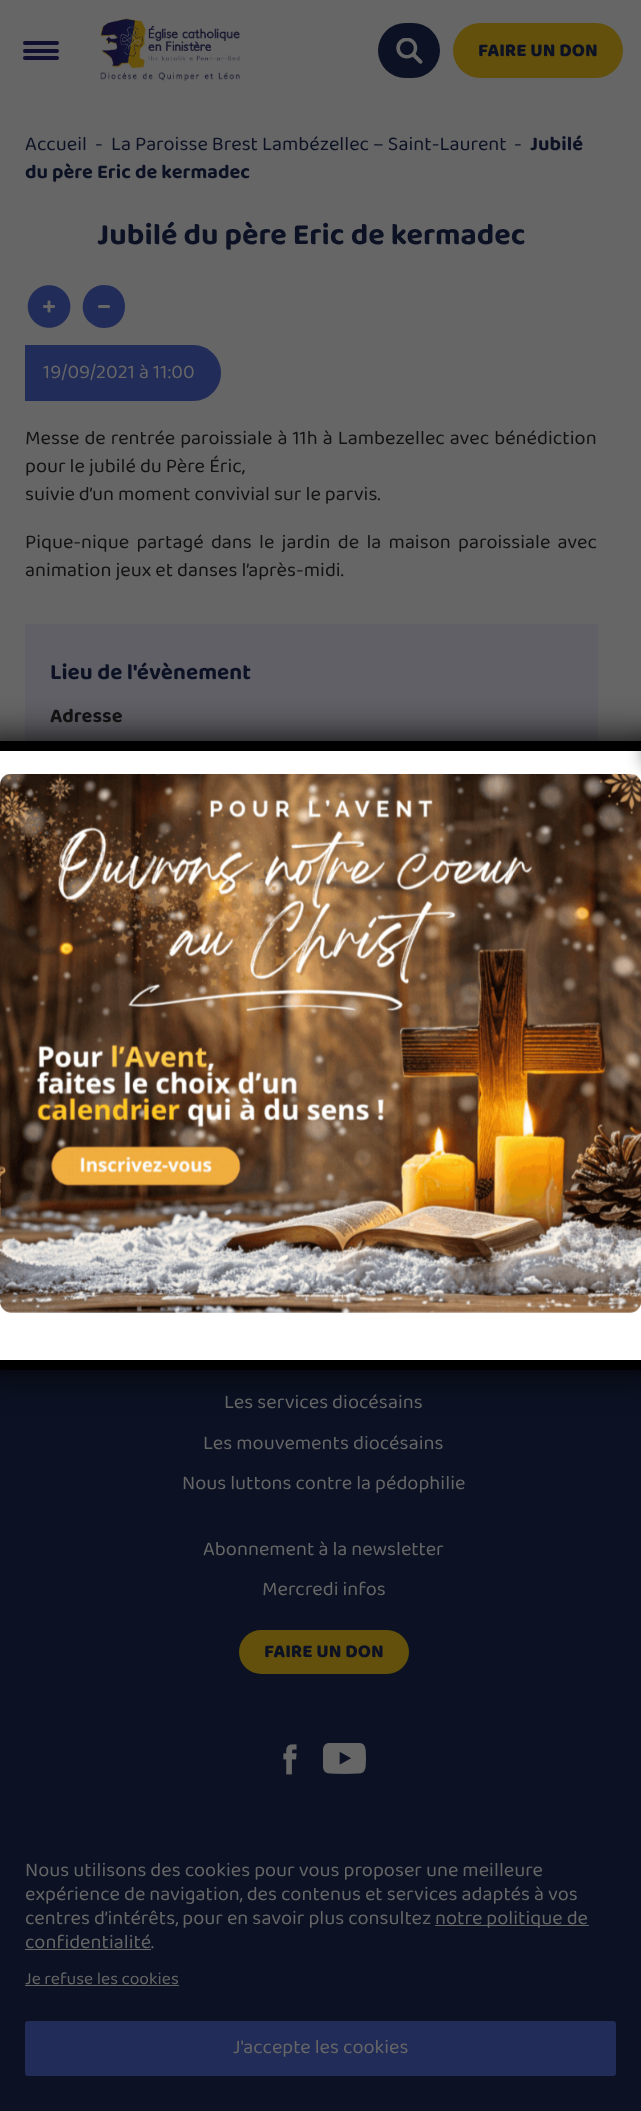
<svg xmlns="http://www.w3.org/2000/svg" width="641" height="2111">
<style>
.a{font:800 18.75px 'Baloo Thambi 2';fill:#0c1224}
.b{font:20px 'Baloo Thambi 2';fill:#0c1224}
.c{font:bold 20px 'Baloo Thambi 2';fill:#0c1224}
.d{font:bold 30.4px 'Baloo Thambi 2';fill:#0c1224}
.e{font:20px 'Baloo Thambi 2';fill:#666}
.f{font:20px 'Baloo Thambi 2';fill:#121213}
.g{font:bold 22.5px 'Baloo Thambi 2';fill:#0c1224}
.h{font:bold 20px 'Baloo Thambi 2';fill:#121213}
.i{font:17.5px 'Baloo Thambi 2';fill:#666}
</style>
<rect width="100%" height="100%" fill="#666"/>
<rect fill="#110f30" x="23" y="41" width="36" height="4" rx="2"/>
<rect fill="#110f30" x="23" y="49" width="36" height="4" rx="2"/>
<rect fill="#110f30" x="23" y="56" width="36" height="4" rx="2"/>
<image href="1.png" x="100" y="18" width="140" height="64"/>
<rect fill="#0c1224" x="378" y="23" width="62" height="55" rx="27.5"/>
<image href="2.png" x="396" y="38" width="27" height="26"/>
<rect fill="#63500c" x="453" y="23" width="170" height="55" rx="27.5"/>
<image href="3.png" x="27" y="285" width="44" height="43"/>
<path fill="#222c58" d="M104 328c28 0 28-43 0-43c-21 0-29 28-12 39c4 3 8 4 12 4z"/>
<path fill="#666" d="M104 305h5.5c1 2.5 .5 3-2 3h-9c-1-2.5-.5-3 2-3z"/>
<path fill="#222c58" d="M25 345h168c15.5 0 28 12.5 28 28c0 15.5-12.5 28-28 28h-168z"/>
<path fill="#606066" d="M25 624h573v117H25z"/>
<path fill="#0c1224" d="M0 1370h641v741H0z"/>
<rect fill="#020202" filter="blur(19px)" x="-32" y="741" width="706" height="629" rx="4"/>
<path fill="#fff" d="M0 751h641v609H0z"/>
<path fill="none" stroke="#000" stroke-width="10" d="M-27.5 746h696.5v619h-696.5z"/>
<image href="4.png" x="0" y="774" width="641" height="539"/>
<rect fill="#020202bf" filter="blur(9.5px)" x="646" y="734" width="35" height="35" rx="17.5"/>
<rect fill="#63500c" x="239" y="1630" width="170" height="44" rx="22"/>
<image href="5.png" x="283" y="1744" width="14" height="31"/>
<image href="6.png" x="323" y="1743" width="43" height="31"/>
<path fill="#666" d="M435 1925h154v1H435z"/>
<path fill="#666" d="M25 1949h126v1H25z"/>
<path fill="#666" d="M25 1985h154v1H25z"/>
<rect fill="#222c58" stroke="#222c58" x="25.5" y="2021.5" width="590" height="54" rx="2"/>
<text class="a" x="478" y="56">FAIRE UN DON</text>
<text class="b" x="25" y="150">Accueil</text>
<text class="b" x="95" y="150">-</text>
<text class="b" x="111" y="150">La Paroisse Brest Lambézellec – Saint-Laurent</text>
<text class="b" x="514" y="150">-</text>
<text class="c" x="530" y="150">Jubilé</text>
<text class="c" x="25" y="178">du père Eric de kermadec</text>
<text class="d" x="97" y="244">Jubilé du père Eric de kermadec</text>
<text class="e" x="43" y="378">19/09/2021 à 11:00</text>
<text class="f" x="25" y="444" word-spacing="1">Messe de rentrée paroissiale à 11h à Lambezellec avec bénédiction</text>
<text class="f" x="25" y="472">pour le jubilé du Père Éric,</text>
<text class="f" x="25" y="500">suivie d’un moment convivial sur le parvis.</text>
<text class="f" x="25" y="548" word-spacing="3.25">Pique-nique partagé dans le jardin de la maison paroissiale avec</text>
<text class="f" x="25" y="576">animation jeux et danses l’après-midi.</text>
<text class="g" x="50" y="679">Lieu de l'évènement</text>
<text class="h" x="50" y="722">Adresse</text>
<text class="e" x="224" y="1408">Les services diocésains</text>
<text class="e" x="203" y="1449">Les mouvements diocésains</text>
<text class="e" x="182" y="1489">Nous luttons contre la pédophilie</text>
<text class="e" x="203" y="1555">Abonnement à la newsletter</text>
<text class="e" x="262" y="1595">Mercredi infos</text>
<text class="a" x="264" y="1657">FAIRE UN DON</text>
<text class="e" x="25" y="1876">Nous utilisons des cookies pour vous proposer une meilleure</text>
<text class="e" x="25" y="1900">expérience de navigation, des contenus et services adaptés à vos</text>
<text class="e" x="25" y="1924">centres d’intérêts, pour en savoir plus consultez</text>
<text class="e" x="435" y="1924">notre politique de</text>
<text class="e" x="25" y="1948">confidentialité.</text>
<text class="i" x="25" y="1984">Je refuse les cookies</text>
<text class="e" x="233" y="2053">J'accepte les cookies</text>
</svg>
